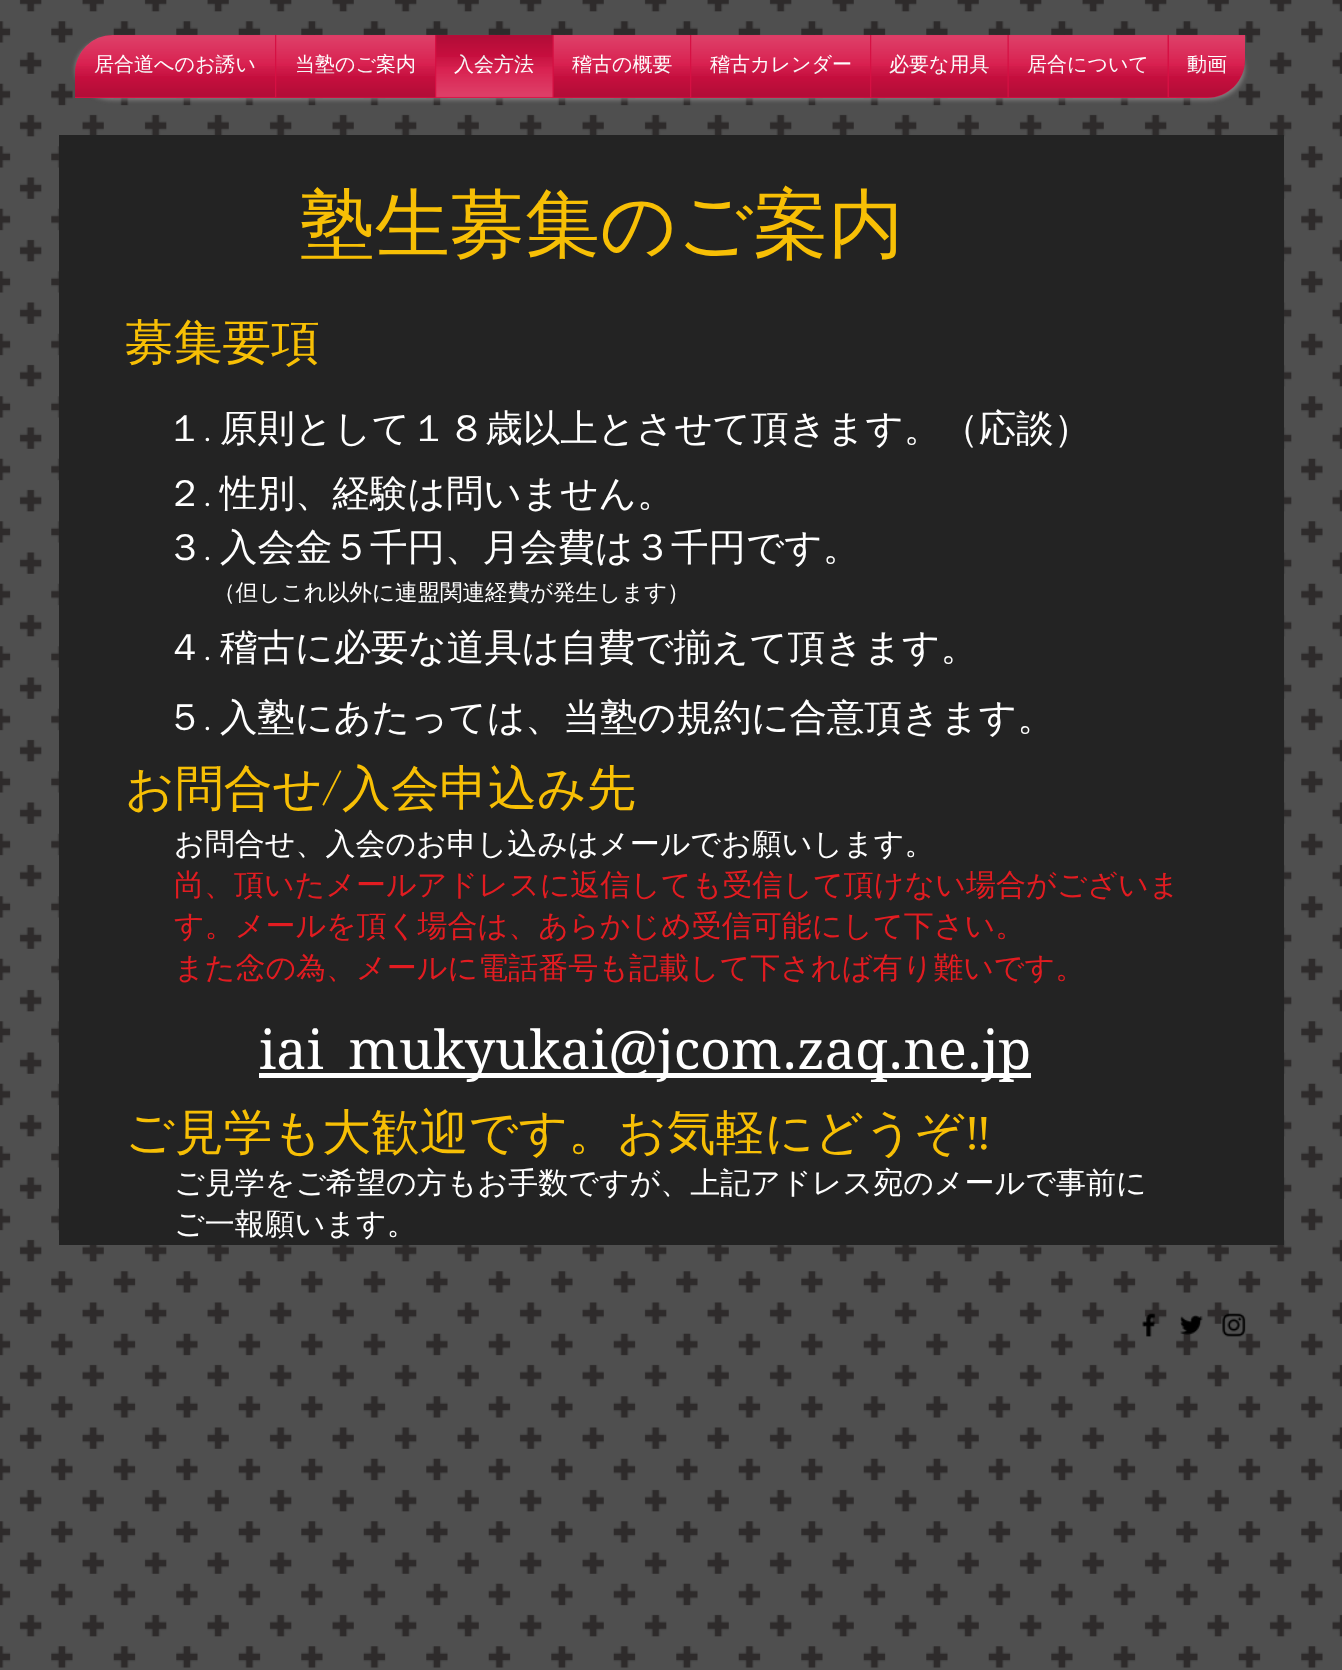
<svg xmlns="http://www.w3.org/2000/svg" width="1342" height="1670">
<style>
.a{font:500 20px WenQuanYi Zen Hei;fill:#fff}
.b{font:500 75px WenQuanYi Zen Hei;fill:#f7bf05}
.c{font:500 48.75px WenQuanYi Zen Hei;fill:#f7bf05}
.d{font:500 37.5px WenQuanYi Zen Hei;fill:#fff}
.e{font:37.5px Cinzel;fill:#fff}
.f{font:500 22.5px WenQuanYi Zen Hei;fill:#fff}
.g{font:48.75px Cinzel;fill:#f7bf05}
.h{font:500 30px WenQuanYi Zen Hei;fill:#fff}
.i{font:500 30px WenQuanYi Zen Hei;fill:#e21c21}
.j{font:53.75px 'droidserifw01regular';fill:#fff}
.k{font:48.75px Liberation Serif;fill:#f7bf05}
</style>
<rect width="100%" height="100%" fill="#4f4f4f"/>
<image href="1.png" x="0" y="0" width="1342" height="1668"/>
<rect fill="#a29e9e99" filter="blur(2px)" x="75" y="38" width="1170" height="62" rx="38"/>
<image href="2.png" x="75" y="35" width="1170" height="38"/>
<image href="3.png" x="75" y="68" width="1169" height="29"/>
<path fill="#d61043" d="M113 35h162v63h-200v-25c0-21 17-38 38-38z"/>
<path fill="#d61043" d="M275 35h893v63H275z"/>
<path fill="#d61043" d="M1168 35h77v25c0 21-17 38-38 38h-39z"/>
<path fill="#232323" d="M59 135h1225v1110H59z"/>
<path fill="#fff" d="M259 1073h772v5H259z"/>
<image href="20.png" x="1142" y="1313" width="14" height="24"/>
<image href="21.png" x="1180" y="1315" width="23" height="20"/>
<image href="22.png" x="1222" y="1313" width="24" height="24"/>
<text class="a" x="94" y="71">居合道へのお誘い</text>
<image href="4.png" x="75" y="35" width="200" height="41"/>
<image href="5.png" x="75" y="66" width="200" height="31"/>
<text class="a" x="295" y="71">当塾のご案内</text>
<image href="6.png" x="276" y="35" width="159" height="41"/>
<image href="7.png" x="276" y="66" width="159" height="32"/>
<text class="a" x="454" y="71">入会方法</text>
<image href="8.png" x="436" y="35" width="117" height="32"/>
<image href="9.png" x="436" y="57" width="117" height="41"/>
<text class="a" x="572" y="71">稽古の概要</text>
<image href="10.png" x="553" y="35" width="137" height="41"/>
<image href="11.png" x="553" y="66" width="137" height="32"/>
<text class="a" x="710" y="71">稽古カレンダー</text>
<image href="12.png" x="691" y="35" width="179" height="41"/>
<image href="13.png" x="691" y="66" width="179" height="32"/>
<text class="a" x="889" y="71">必要な用具</text>
<image href="14.png" x="871" y="35" width="137" height="41"/>
<image href="15.png" x="871" y="66" width="137" height="32"/>
<text class="a" x="1027" y="71">居合について</text>
<image href="16.png" x="1008" y="35" width="160" height="41"/>
<image href="17.png" x="1008" y="66" width="160" height="32"/>
<text class="a" x="1187" y="71">動画</text>
<image href="18.png" x="1169" y="35" width="76" height="41"/>
<image href="19.png" x="1169" y="66" width="75" height="31"/>
<text class="b" x="300" y="250">塾生募集のご案内</text>
<text class="c" x="125" y="359">募集要項</text>
<text class="d" x="166" y="441">１</text>
<text class="e" x="204" y="441">.</text>
<text class="d" x="220" y="441">原則として１８歳以上とさせて頂きます。（応談）</text>
<text class="d" x="166" y="506">２</text>
<text class="e" x="204" y="506">.</text>
<text class="d" x="220" y="506">性別、経験は問いません。</text>
<text class="d" x="166" y="560">３</text>
<text class="e" x="204" y="560">.</text>
<text class="d" x="220" y="560">入会金５千円、月会費は３千円です。</text>
<text class="f" x="213" y="600">（但しこれ以外に連盟関連経費が発生します）</text>
<text class="d" x="166" y="660">４</text>
<text class="e" x="204" y="660">.</text>
<text class="d" x="220" y="660">稽古に必要な道具は自費で揃えて頂きます。</text>
<text class="d" x="166" y="730">５</text>
<text class="e" x="204" y="730">.</text>
<text class="d" x="220" y="730">入塾にあたっては、当塾の規約に合意頂きます。</text>
<text class="c" x="125" y="805">お問合せ</text>
<text class="g" x="322" y="805">/</text>
<text class="c" x="342" y="805">入会申込み先</text>
<text class="h" x="174" y="854">お問合せ、入会のお申し込みはメールでお願いします。</text>
<text class="i" x="174" y="895">尚、頂いたメールアドレスに返信しても受信して頂けない場合がございま</text>
<text class="i" x="174" y="936">す。メールを頂く場合は、あらかじめ受信可能にして下さい。</text>
<text class="i" x="174" y="978">また念の為、メールに電話番号も記載して下されば有り難いです。</text>
<text class="j" x="259" y="1069">iai_mukyukai@jcom.zaq.ne.jp</text>
<text class="c" x="125" y="1149">ご見学も大歓迎です。お気軽にどうぞ</text>
<text class="k" x="964" y="1149">‼︎</text>
<text class="h" x="174" y="1193">ご見学をご希望の方もお手数ですが、上記アドレス宛のメールで事前に</text>
<text class="h" x="174" y="1234">ご一報願います。</text>
</svg>
